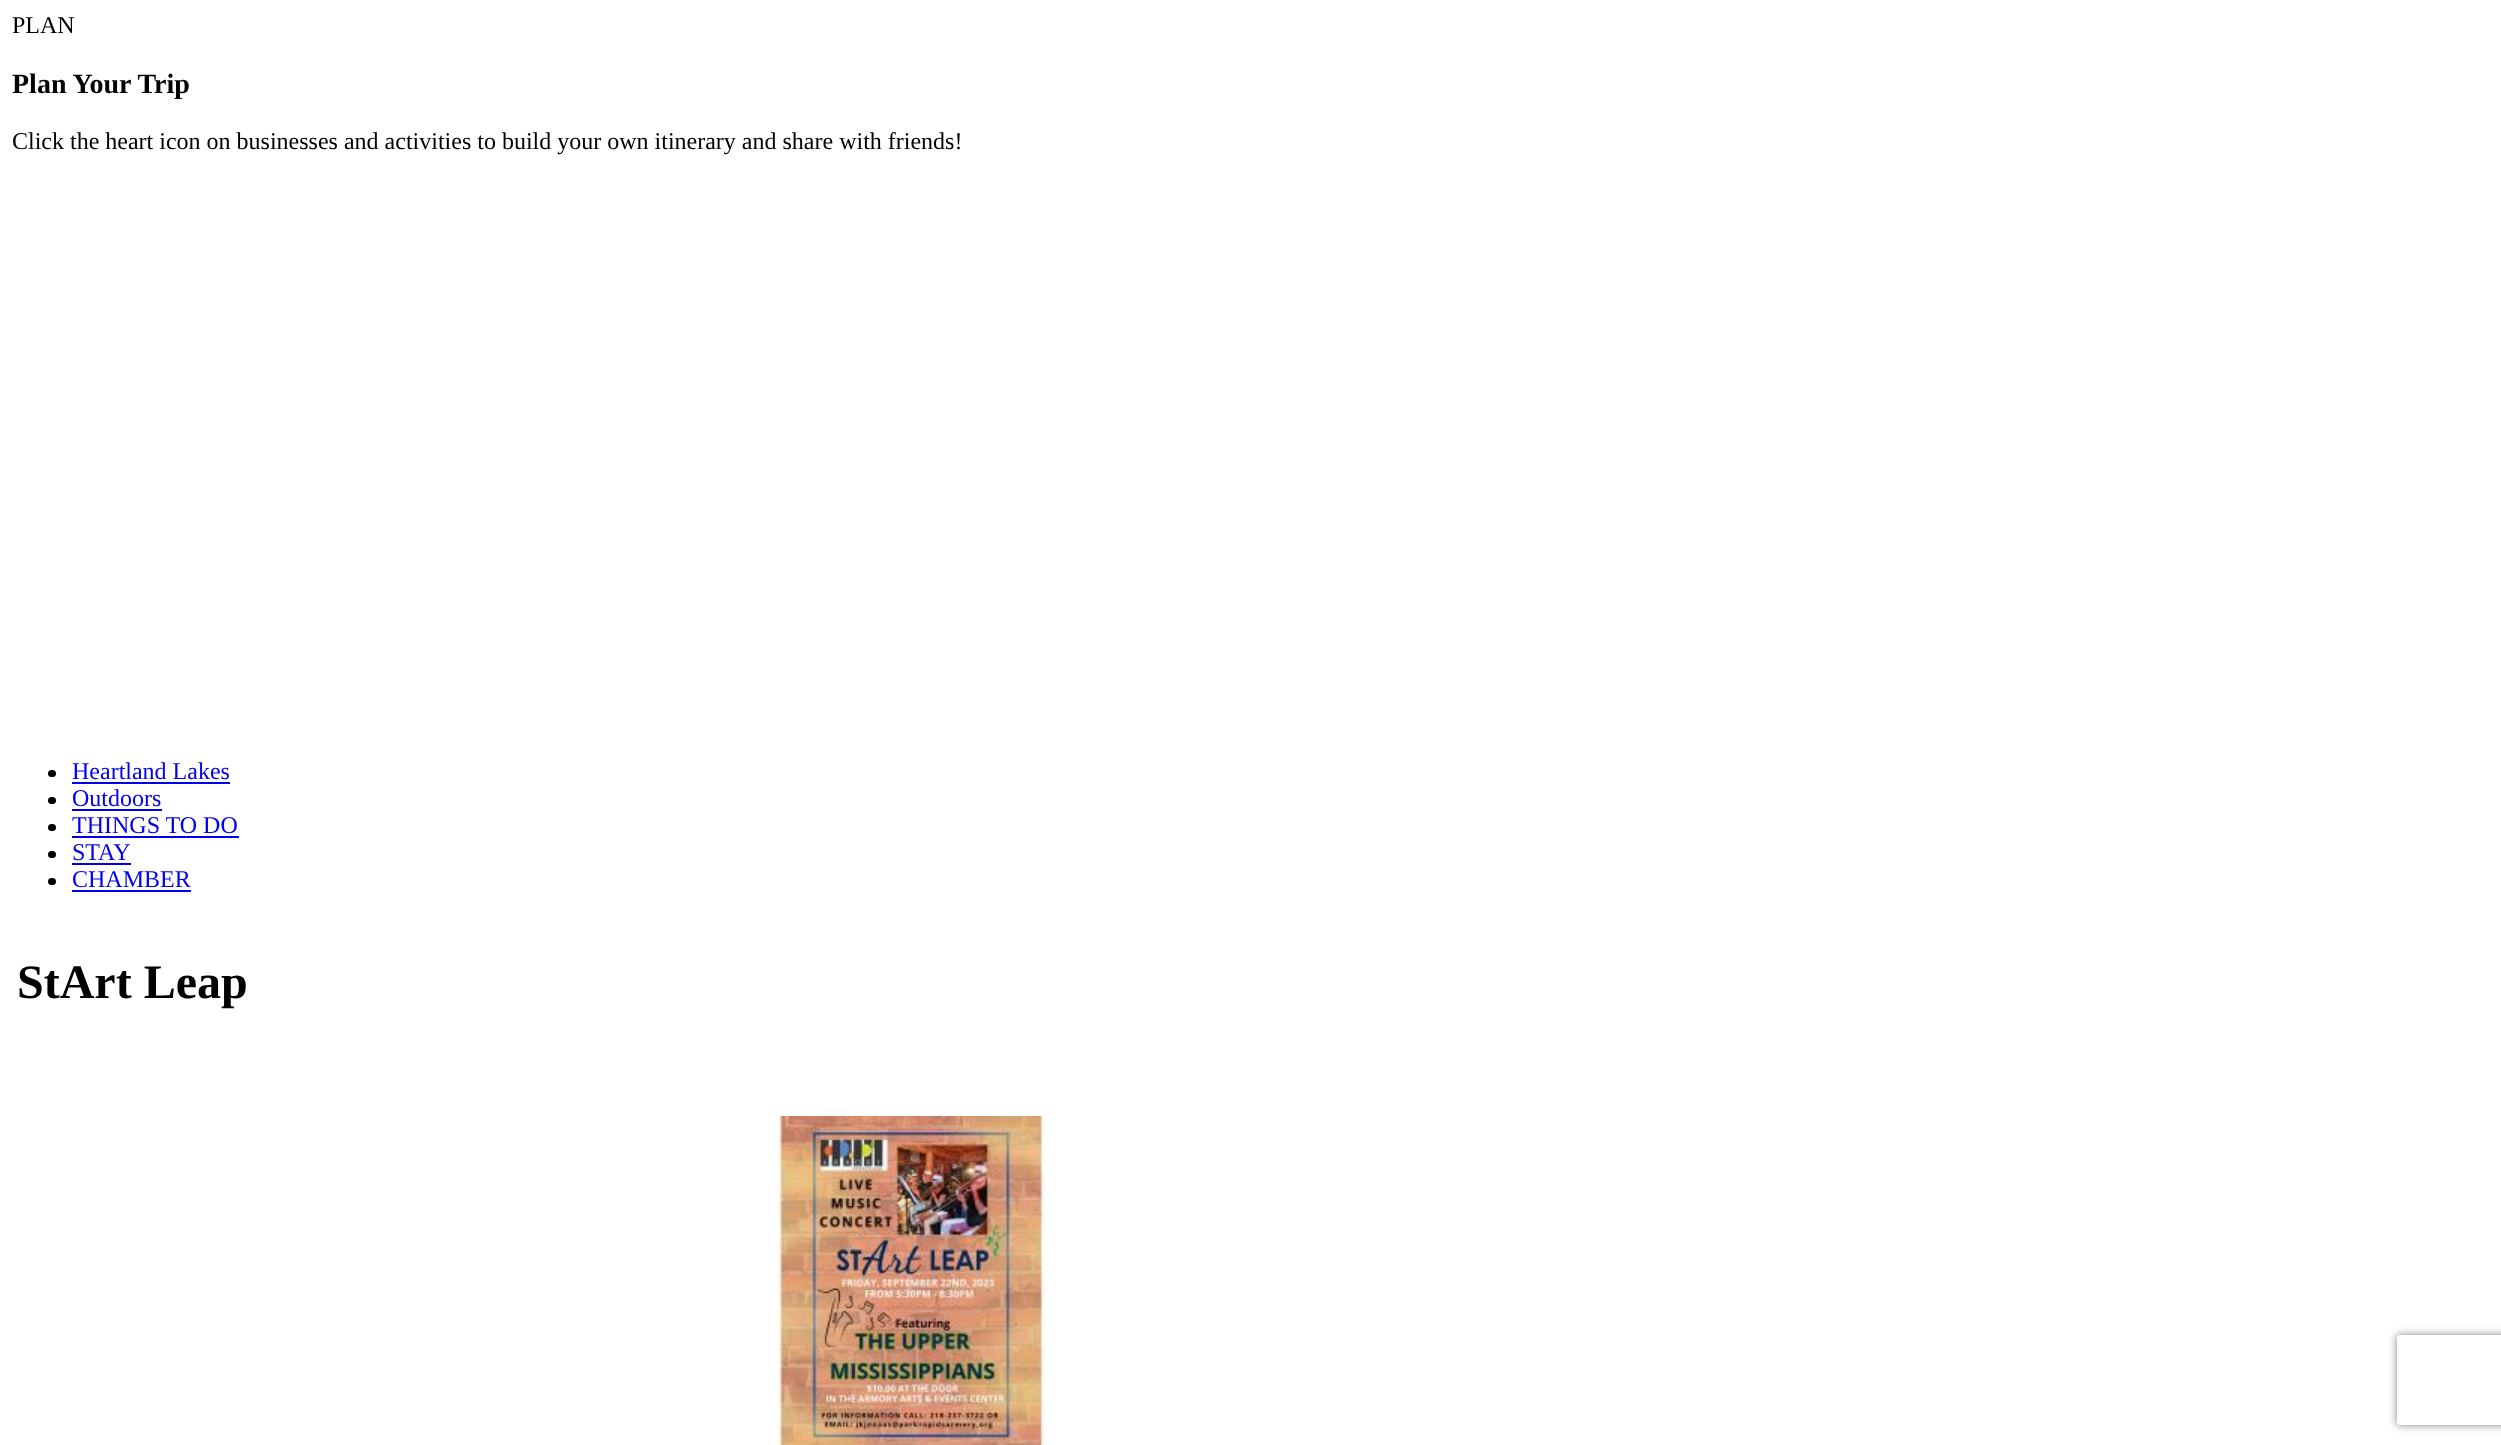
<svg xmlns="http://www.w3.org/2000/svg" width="2501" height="1445">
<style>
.a{font:24px Liberation Serif;fill:#000}
.b{font:bold 28px Liberation Serif;fill:#000}
.c{font:24px Liberation Serif;fill:#00e}
.d{font:bold 48px Liberation Serif;fill:#000}
</style>
<defs>
<clipPath id="clip1"><path d="M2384 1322h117v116h-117zm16 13h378c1.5 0 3 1.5 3 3v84c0 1.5-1.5 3-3 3h-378c-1.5 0-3-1.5-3-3v-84c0-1.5 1.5-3 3-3z" clip-rule="evenodd"/></clipPath>
</defs>
<rect width="100%" height="100%" fill="#fff"/>
<rect fill="#000" x="48" y="770" width="8" height="7" rx="3.5"/>
<path fill="#00e" d="M72 782h158v2H72z"/>
<rect fill="#000" x="48" y="797" width="8" height="7" rx="3.5"/>
<path fill="#00e" d="M72 809h90v2H72z"/>
<rect fill="#000" x="48" y="824" width="8" height="7" rx="3.5"/>
<path fill="#00e" d="M72 836h167v2H72z"/>
<rect fill="#000" x="48" y="851" width="8" height="7" rx="3.5"/>
<path fill="#00e" d="M72 863h59v2H72z"/>
<rect fill="#000" x="48" y="878" width="8" height="7" rx="3.5"/>
<path fill="#00e" d="M72 890h119v2H72z"/>
<image href="1.png" x="778" y="1116" width="267" height="329"/>
<g clip-path="url(#clip1)">
<rect fill="#808080" filter="blur(4px)" x="2397" y="1335" width="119" height="90" rx="3"/>
</g>
<text class="a" x="12" y="33">PLAN</text>
<text class="b" x="12" y="93">Plan Your Trip</text>
<text class="a" x="12" y="149">Click the heart icon on businesses and activities to build your own itinerary and share with friends!</text>
<text class="c" x="72" y="779">Heartland Lakes</text>
<text class="c" x="72" y="806">Outdoors</text>
<text class="c" x="72" y="833">THINGS TO DO</text>
<text class="c" x="72" y="860">STAY</text>
<text class="c" x="72" y="887">CHAMBER</text>
<text class="d" x="17" y="998">StArt Leap</text>
</svg>
